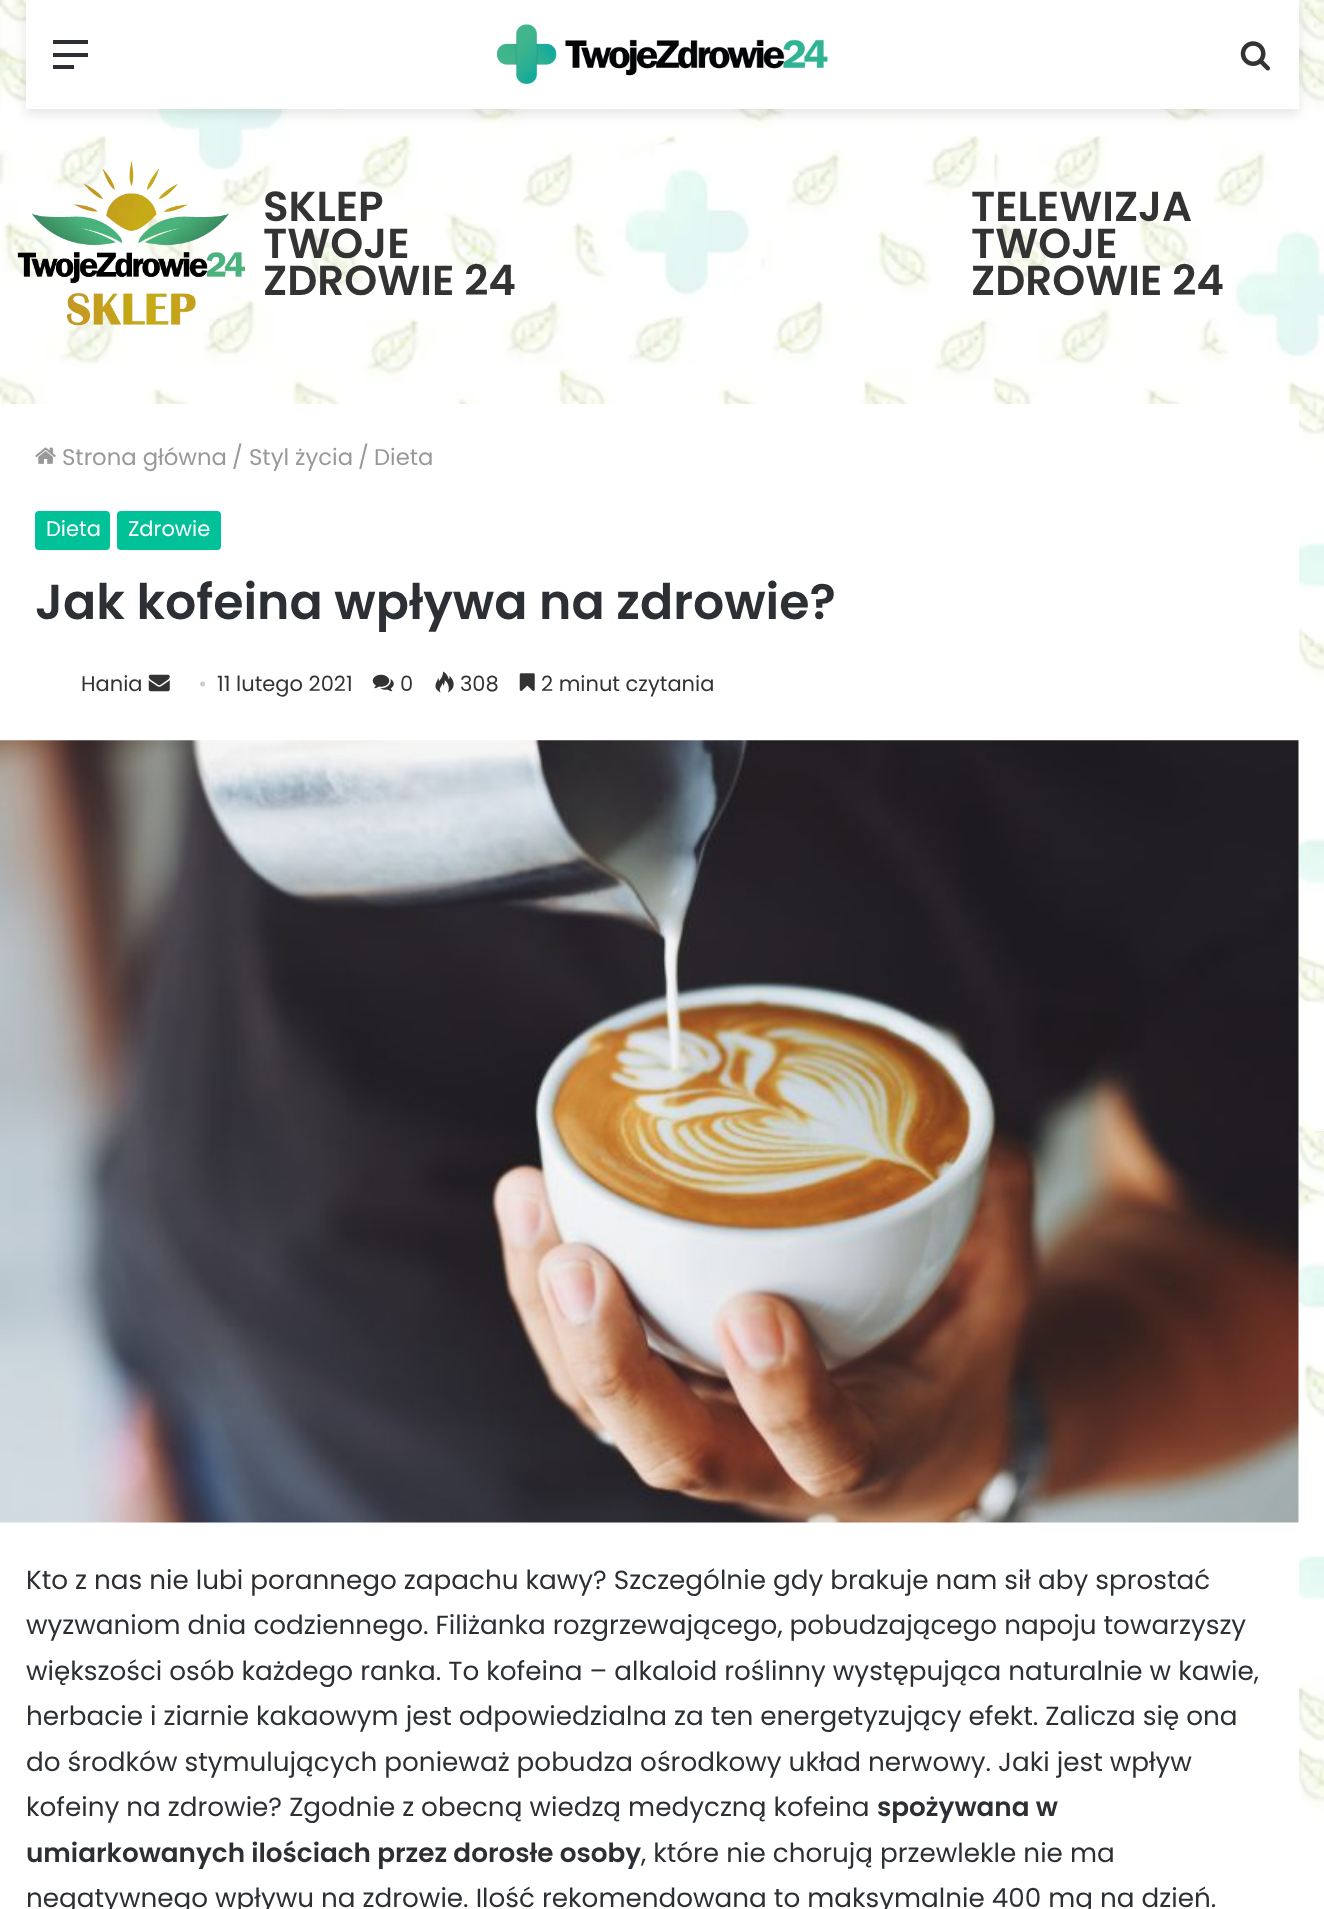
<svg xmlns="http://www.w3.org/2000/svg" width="1324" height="1909">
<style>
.a{font:600 42px Poppins;fill:#333}
.b{font:22.75px Poppins;fill:#999}
.c{font:21px Poppins;fill:#fff}
.d{font:600 49px Poppins;fill:#2c2f34}
.e{font:21px Poppins;fill:#333}
.f{font:21px Liberation Serif;fill:#ccc}
.g{font:26.25px Poppins;fill:#2c2f34}
.h{font:600 26.25px Poppins;fill:#2c2f34}
</style>
<rect width="100%" height="100%" fill="#fff"/>
<image href="1.png" x="0" y="0" width="1324" height="1909"/>
<path fill="#0000001a" filter="blur(6px)" d="M26 5h1273v109H26z"/>
<path fill="#fff" d="M26 0h1273v109H26z"/>
<path fill="#2c2f34" d="M53 53h35v4H53z"/>
<path fill="#2c2f34" d="M53 40h35v4H53z"/>
<path fill="#2c2f34" d="M53 65h21v4H53z"/>
<image href="2.png" x="497" y="24" width="331" height="60"/>
<image href="3.png" x="1240" y="41" width="30" height="30"/>
<image href="4.png" x="17" y="161" width="228" height="165"/>
<path fill="#fff" d="M0 404h1299v1505H0z"/>
<image href="5.png" x="35" y="447" width="21" height="17"/>
<rect fill="#01c198" x="35" y="511" width="75" height="39" rx="4"/>
<rect fill="#01c198" x="117" y="511" width="104" height="39" rx="4"/>
<image href="6.png" x="148" y="674" width="22" height="18"/>
<image href="7.png" x="372" y="674" width="22" height="18"/>
<image href="8.png" x="435" y="671" width="19" height="22"/>
<image href="9.png" x="519" y="673" width="16" height="18"/>
<image href="10.png" x="0" y="740" width="1299" height="783"/>
<text class="a" x="263" y="221">SKLEP</text>
<text class="a" x="263" y="258">TWOJE</text>
<text class="a" x="263" y="295">ZDROWIE 24</text>
<text class="a" x="971" y="221">TELEWIZJA</text>
<text class="a" x="971" y="258">TWOJE</text>
<text class="a" x="971" y="295">ZDROWIE 24</text>
<text class="b" x="62" y="465">Strona główna</text>
<text class="b" x="232" y="465">/</text>
<text class="b" x="249" y="465">Styl życia</text>
<text class="b" x="358" y="465">/</text>
<text class="b" x="374" y="465">Dieta</text>
<text class="c" x="46" y="536">Dieta</text>
<text class="c" x="128" y="536">Zdrowie</text>
<text class="d" x="35" y="619">Jak kofeina wpływa na zdrowie?</text>
<text class="e" x="81" y="691">Hania</text>
<text class="f" x="199" y="691">•</text>
<text class="e" x="217" y="691">11 lutego 2021</text>
<text class="e" x="400" y="691">0</text>
<text class="e" x="460" y="691">308</text>
<text class="e" x="541" y="691">2 minut czytania</text>
<text class="g" x="26" y="1589">Kto z nas nie lubi porannego zapachu kawy? Szczególnie gdy brakuje nam sił aby sprostać</text>
<text class="g" x="26" y="1634">wyzwaniom dnia codziennego. Filiżanka rozgrzewającego, pobudzającego napoju towarzyszy</text>
<text class="g" x="26" y="1680">większości osób każdego ranka. To kofeina – alkaloid roślinny występująca naturalnie w kawie,</text>
<text class="g" x="26" y="1725">herbacie i ziarnie kakaowym jest odpowiedzialna za ten energetyzujący efekt. Zalicza się ona</text>
<text class="g" x="26" y="1771">do środków stymulujących ponieważ pobudza ośrodkowy układ nerwowy. Jaki jest wpływ</text>
<text class="g" x="26" y="1816">kofeiny na zdrowie? Zgodnie z obecną wiedzą medyczną kofeina</text>
<text class="h" x="877" y="1816">spożywana w</text>
<text class="h" x="26" y="1862">umiarkowanych ilościach przez dorosłe osoby</text>
<text class="g" x="641" y="1862">, które nie chorują przewlekle nie ma</text>
<text class="g" x="26" y="1907">negatywnego wpływu na zdrowie. Ilość rekomendowana to maksymalnie 400 mg na dzień.</text>
</svg>
